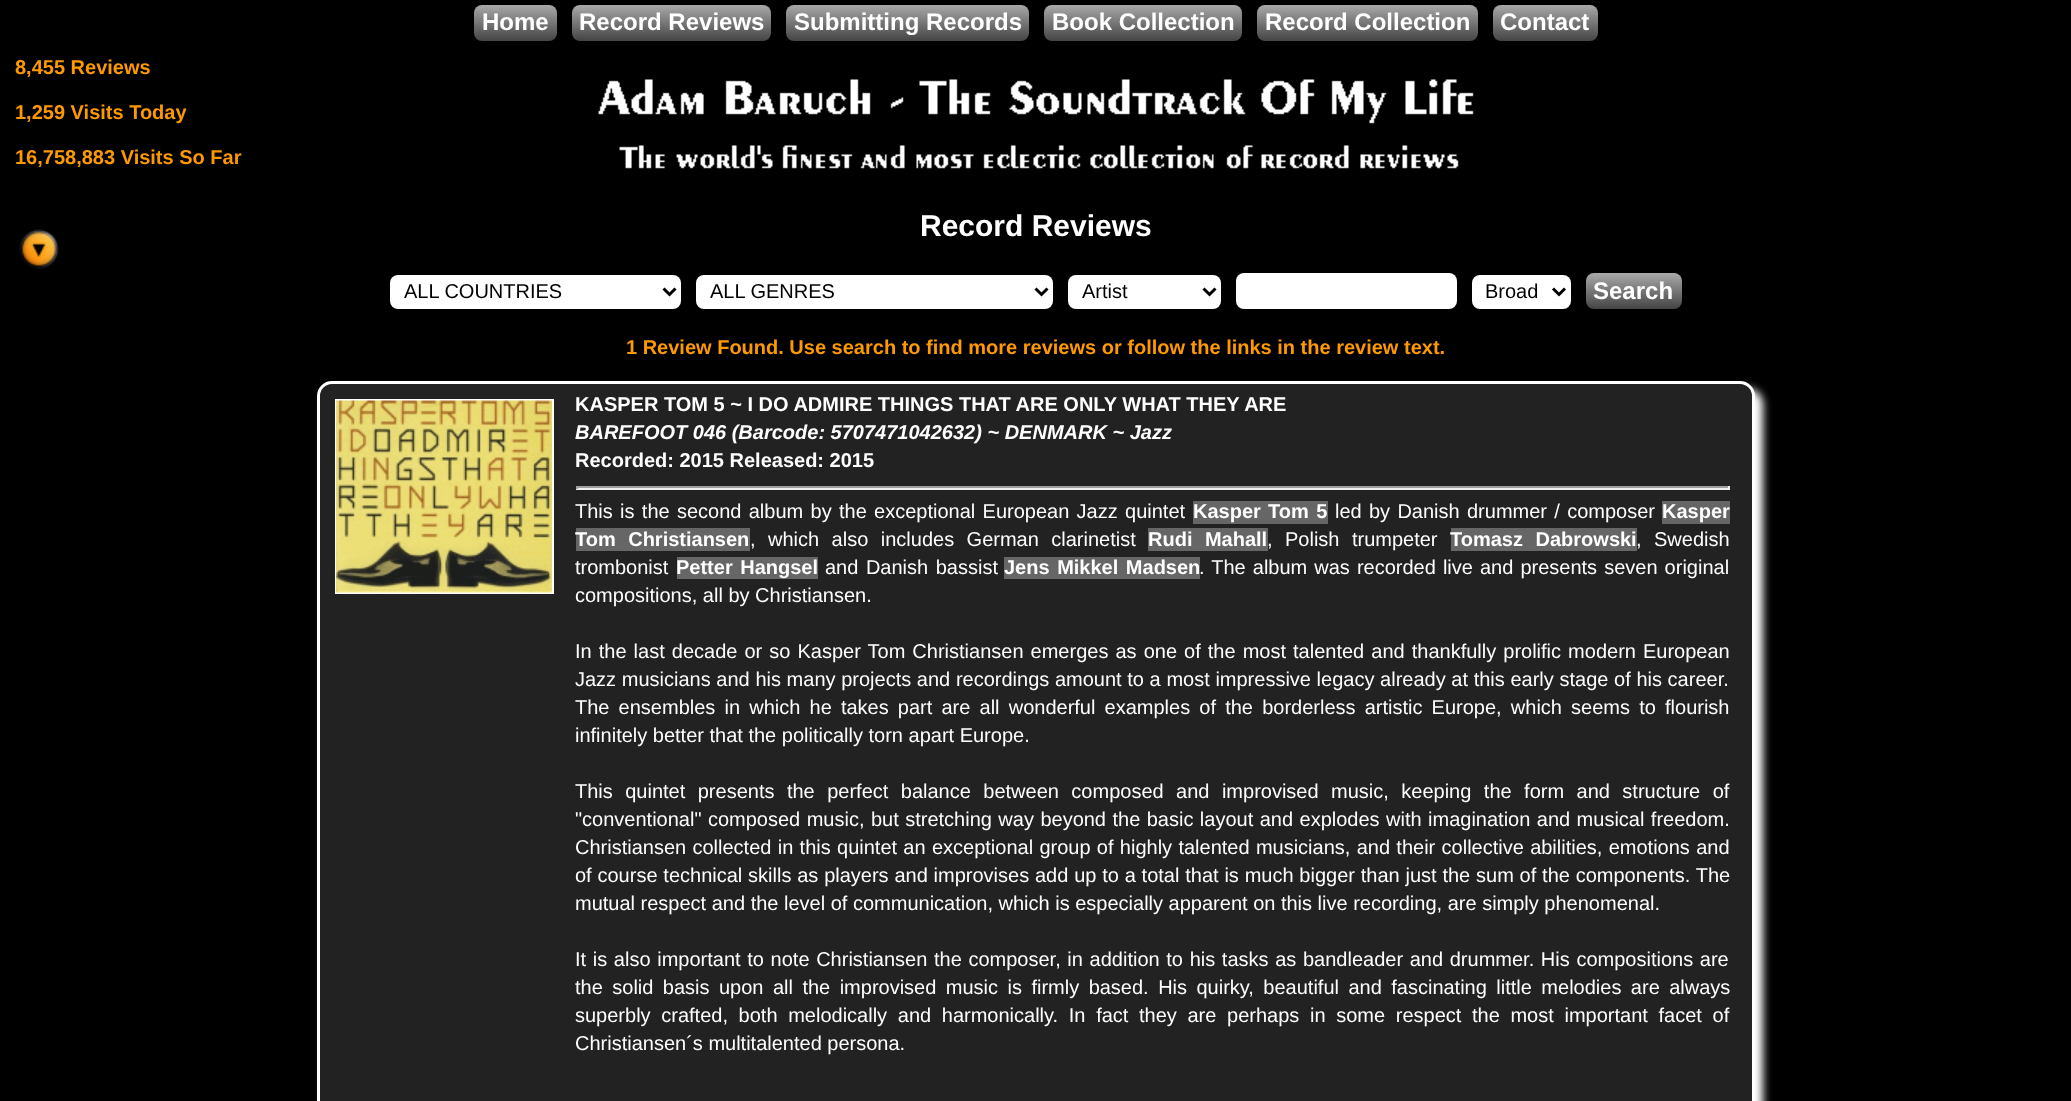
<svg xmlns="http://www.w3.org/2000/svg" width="2071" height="1101">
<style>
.a{font:bold 24px Liberation Sans;fill:#fff}
.b{font:bold 20px Liberation Sans;fill:#f90}
.c{font:bold 30px Liberation Sans;fill:#fff}
.d{font:20px Liberation Sans;fill:#000}
.e{font:bold 20px Liberation Sans;fill:#fff}
.f{font:italic bold 20px Liberation Sans;fill:#fff}
.g{font:20px Liberation Sans;fill:#fff}
</style>
<defs>
<linearGradient id="g1" gradientUnits="userSpaceOnUse" x1="515" y1="4.5" x2="515" y2="41"><stop offset="0" stop-color="#aaa"/><stop offset="1" stop-color="#444"/></linearGradient>
<linearGradient id="g2" gradientUnits="userSpaceOnUse" x1="671" y1="4.5" x2="671" y2="41"><stop offset="0" stop-color="#aaa"/><stop offset="1" stop-color="#444"/></linearGradient>
<linearGradient id="g3" gradientUnits="userSpaceOnUse" x1="908" y1="4.5" x2="908" y2="41"><stop offset="0" stop-color="#aaa"/><stop offset="1" stop-color="#444"/></linearGradient>
<linearGradient id="g4" gradientUnits="userSpaceOnUse" x1="1143" y1="4.5" x2="1143" y2="41"><stop offset="0" stop-color="#aaa"/><stop offset="1" stop-color="#444"/></linearGradient>
<linearGradient id="g5" gradientUnits="userSpaceOnUse" x1="1367" y1="4.5" x2="1367" y2="41"><stop offset="0" stop-color="#aaa"/><stop offset="1" stop-color="#444"/></linearGradient>
<linearGradient id="g6" gradientUnits="userSpaceOnUse" x1="1545" y1="4.5" x2="1545" y2="41"><stop offset="0" stop-color="#aaa"/><stop offset="1" stop-color="#444"/></linearGradient>
<linearGradient id="g7" gradientUnits="userSpaceOnUse" x1="1634" y1="273" x2="1634" y2="309"><stop offset="0" stop-color="#aaa"/><stop offset="1" stop-color="#444"/></linearGradient>
</defs>
<rect width="100%" height="100%" fill="#000"/>
<rect fill="url(#g1)" x="474" y="5" width="83" height="36" rx="8"/>
<rect fill="url(#g2)" x="572" y="5" width="199" height="36" rx="8"/>
<rect fill="url(#g3)" x="786" y="5" width="243" height="36" rx="8"/>
<rect fill="url(#g4)" x="1044" y="5" width="198" height="36" rx="8"/>
<rect fill="url(#g5)" x="1257" y="5" width="221" height="36" rx="8"/>
<rect fill="url(#g6)" x="1493" y="5" width="105" height="36" rx="8"/>
<image href="1.png" x="19" y="229" width="40" height="40"/>
<image href="2.png" x="598" y="79" width="876" height="45"/>
<image href="3.png" x="619" y="145" width="840" height="24"/>
<rect fill="#fff" x="390" y="275" width="291" height="34" rx="8"/>
<path fill="none" stroke="#000" stroke-width="3" d="M663.5 288.5l6 6l6-6"/>
<rect fill="#fff" x="696" y="275" width="357" height="34" rx="8"/>
<path fill="none" stroke="#000" stroke-width="3" d="M1035.5 288.5l6 6l6-6"/>
<rect fill="#fff" x="1068" y="275" width="153" height="34" rx="8"/>
<path fill="none" stroke="#000" stroke-width="3" d="M1203.5 288.5l6 6l6-6"/>
<rect fill="#fff" x="1236" y="273" width="221" height="36" rx="8"/>
<rect fill="#fff" x="1472" y="275" width="99" height="34" rx="8"/>
<path fill="none" stroke="#000" stroke-width="3" d="M1553 288.5l6 6l6-6"/>
<rect fill="url(#g7)" x="1586" y="273" width="96" height="36" rx="8"/>
<rect fill="#fff" filter="blur(4px)" x="324" y="389" width="1439" height="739" rx="15"/>
<rect fill="#222" stroke="#fff" stroke-width="3" x="318.5" y="382.5" width="1435" height="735" rx="13.5"/>
<path fill="none" stroke="#fff" stroke-width="2" d="M336 400h217v193H336z"/>
<image href="4.png" x="336" y="400" width="216" height="193"/>
<path fill="#9f9f9f" d="M576 486h1154v2H576z"/>
<path fill="#eee" d="M1728 486h2v3H1728z"/>
<path fill="#eee" d="M576 488h1154v2H576z"/>
<path fill="#9f9f9f" d="M576 486h2v3H576z"/>
<path fill="#666" d="M1193 501h135v23H1193z"/>
<path fill="#666" d="M1662 501h68v23H1662z"/>
<path fill="#666" d="M576 528h174v23H576z"/>
<path fill="#666" d="M1148 528h120v23H1148z"/>
<path fill="#666" d="M1451 528h186v23H1451z"/>
<path fill="#666" d="M677 557h141v22H677z"/>
<path fill="#666" d="M1004 557h196v22H1004z"/>
<text class="a" x="482" y="30">Home</text>
<text class="a" x="579" y="30">Record Reviews</text>
<text class="a" x="794" y="30">Submitting Records</text>
<text class="a" x="1052" y="30">Book Collection</text>
<text class="a" x="1265" y="30">Record Collection</text>
<text class="a" x="1500" y="30">Contact</text>
<text class="b" x="15" y="74">8,455 Reviews</text>
<text class="b" x="15" y="119">1,259 Visits Today</text>
<text class="b" x="15" y="164">16,758,883 Visits So Far</text>
<text class="c" x="920" y="236">Record Reviews</text>
<text class="d" x="404" y="298">ALL COUNTRIES</text>
<text class="d" x="710" y="298">ALL GENRES</text>
<text class="d" x="1082" y="298">Artist</text>
<text class="d" x="1485" y="298">Broad</text>
<text class="a" x="1593" y="299">Search</text>
<text class="b" x="626" y="354">1 Review Found. Use search to find more reviews or follow the links in the review text.</text>
<text class="e" x="575" y="411">KASPER TOM 5 ~ I DO ADMIRE THINGS THAT ARE ONLY WHAT THEY ARE</text>
<text class="f" x="575" y="439">BAREFOOT 046 (Barcode: 5707471042632) ~ DENMARK ~ Jazz</text>
<text class="e" x="575" y="467">Recorded: 2015 Released: 2015</text>
<text class="g" x="575" y="518" word-spacing="1.75">This is the second album by the exceptional European Jazz quintet</text>
<text class="e" x="1193" y="518" word-spacing="1.75">Kasper Tom 5</text>
<text class="g" x="1335" y="518" word-spacing="1.75">led by Danish drummer / composer</text>
<text class="e" x="1662" y="518">Kasper</text>
<text class="e" x="575" y="546" word-spacing="6.9">Tom Christiansen</text>
<text class="g" x="750" y="546" word-spacing="6.9">, which also includes German clarinetist</text>
<text class="e" x="1148" y="546" word-spacing="6.9">Rudi Mahall</text>
<text class="g" x="1267" y="546" word-spacing="6.9">, Polish trumpeter</text>
<text class="e" x="1450" y="546" word-spacing="7">Tomasz Dabrowski</text>
<text class="g" x="1636" y="546" word-spacing="6.9">, Swedish</text>
<text class="g" x="575" y="574">trombonist</text>
<text class="e" x="676" y="574" word-spacing="2">Petter Hangsel</text>
<text class="g" x="825" y="574" word-spacing="2">and Danish bassist</text>
<text class="e" x="1004" y="574" word-spacing="2">Jens Mikkel Madsen</text>
<text class="g" x="1199" y="574" word-spacing="1.5">. The album was recorded live and presents seven original</text>
<text class="g" x="575" y="602">compositions, all by Christiansen.</text>
<text class="g" x="575" y="658" word-spacing="1.5">In the last decade or so Kasper Tom Christiansen emerges as one of the most talented and thankfully prolific modern European</text>
<text class="g" x="575" y="686" word-spacing="0.1">Jazz musicians and his many projects and recordings amount to a most impressive legacy already at this early stage of his career.</text>
<text class="g" x="575" y="714" word-spacing="3.6">The ensembles in which he takes part are all wonderful examples of the borderless artistic Europe, which seems to flourish</text>
<text class="g" x="575" y="742">infinitely better that the politically torn apart Europe.</text>
<text class="g" x="575" y="798" word-spacing="6.9">This quintet presents the perfect balance between composed and improvised music, keeping the form and structure of</text>
<text class="g" x="575" y="826" word-spacing="0.9">"conventional" composed music, but stretching way beyond the basic layout and explodes with imagination and musical freedom.</text>
<text class="g" x="575" y="854" word-spacing="0.75">Christiansen collected in this quintet an exceptional group of highly talented musicians, and their collective abilities, emotions and</text>
<text class="g" x="575" y="882" word-spacing="0.25">of course technical skills as players and improvises add up to a total that is much bigger than just the sum of the components. The</text>
<text class="g" x="575" y="910">mutual respect and the level of communication, which is especially apparent on this live recording, are simply phenomenal.</text>
<text class="g" x="575" y="966" word-spacing="1.1">It is also important to note Christiansen the composer, in addition to his tasks as bandleader and drummer. His compositions are</text>
<text class="g" x="575" y="994" word-spacing="3.9">the solid basis upon all the improvised music is firmly based. His quirky, beautiful and fascinating little melodies are always</text>
<text class="g" x="575" y="1022" word-spacing="5.1">superbly crafted, both melodically and harmonically. In fact they are perhaps in some respect the most important facet of</text>
<text class="g" x="575" y="1050">Christiansen´s multitalented persona.</text>
</svg>
